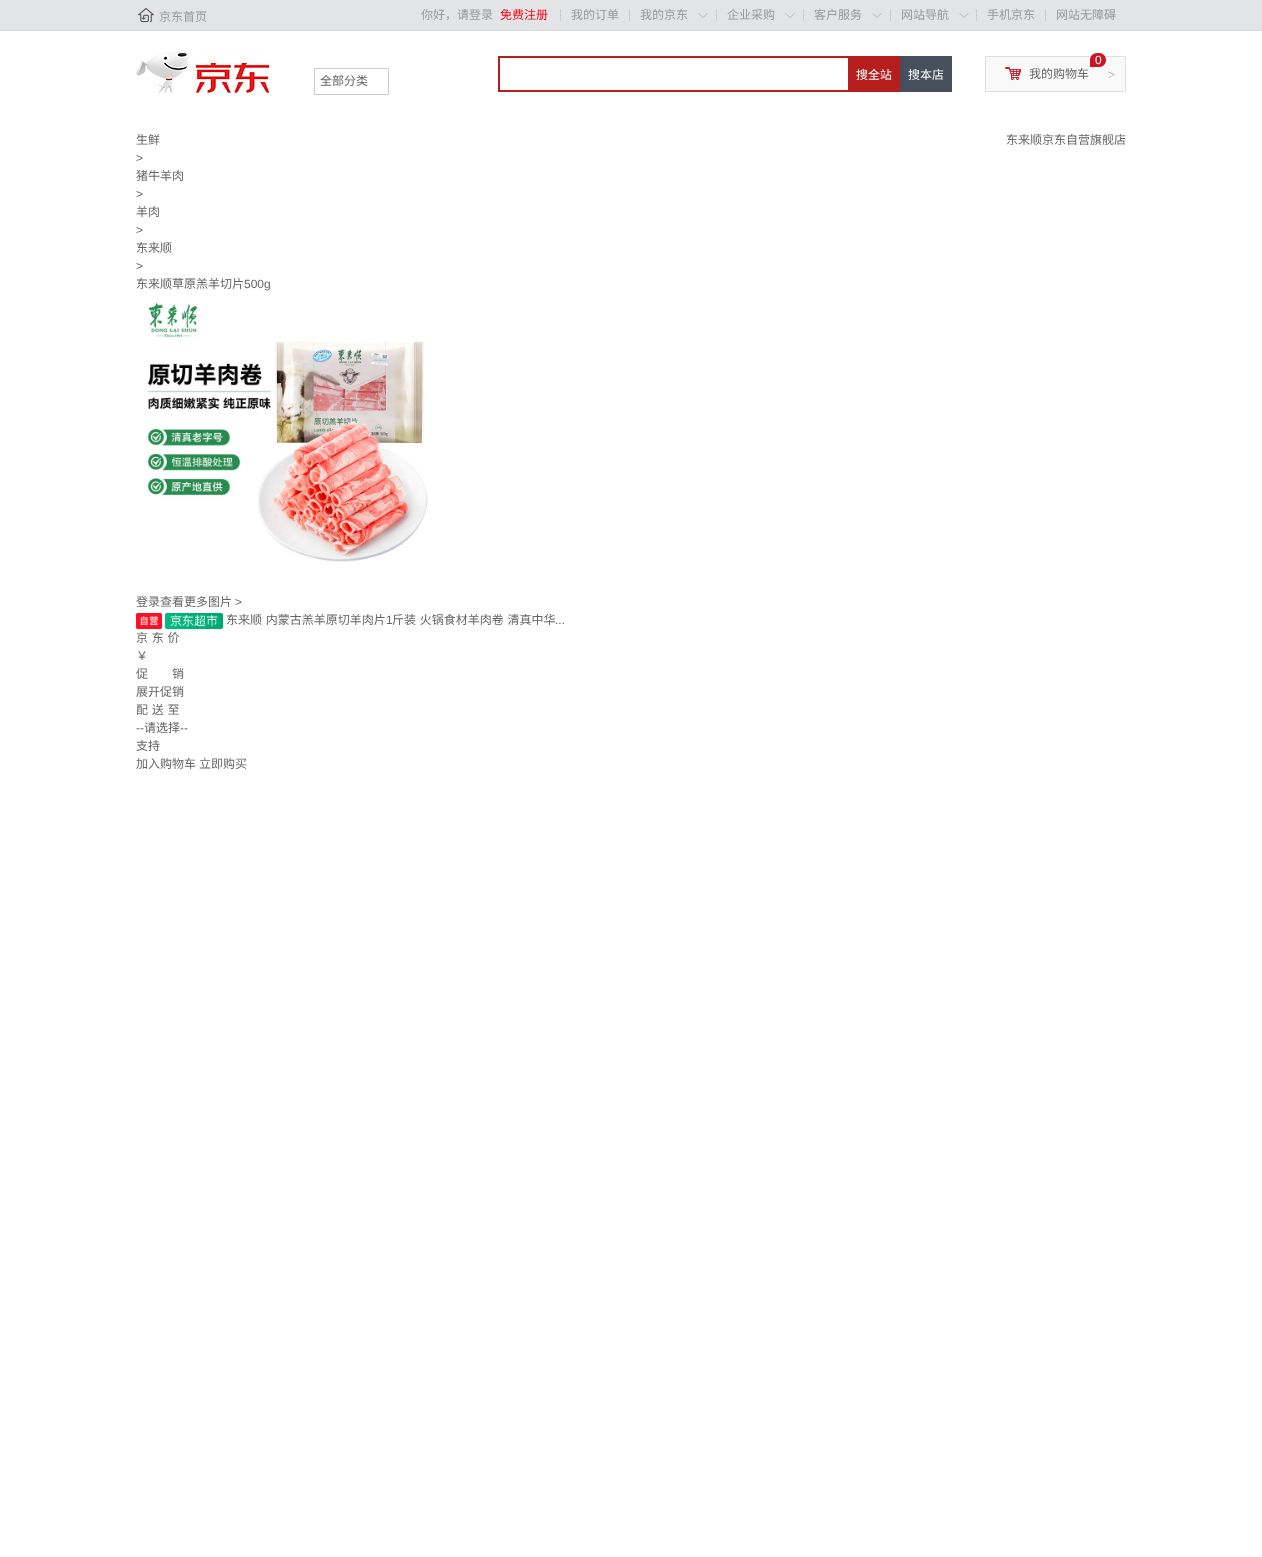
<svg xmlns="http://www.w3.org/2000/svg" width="1262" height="1557">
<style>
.a{font:12px Noto Sans CJK SC;fill:#999}
.b{font:12px Noto Sans CJK SC;fill:#f30213}
.c{font:12px Noto Sans CJK SC;fill:#666}
.d{font:12px Noto Sans CJK SC;fill:#fff}
.e{font:12px Liberation Sans;fill:#fff}
.f{font:13px Liberation Serif;fill:#999}
.g{font:12px Liberation Sans;fill:#666}
</style>
<rect width="100%" height="100%" fill="#fff"/>
<path fill="#e3e4e5" d="M0 0h1262v30H0z"/>
<path fill="#ddd" d="M0 30h1262v1H0z"/>
<image href="1.png" x="138" y="8" width="16" height="15"/>
<path fill="#ccc" d="M560 9h1v12H560z"/>
<path fill="#ccc" d="M629 9h1v12H629z"/>
<image href="2.png" x="698" y="13" width="10" height="5"/>
<path fill="#ccc" d="M716 9h1v12H716z"/>
<image href="2.png" x="785" y="13" width="10" height="5"/>
<path fill="#ccc" d="M803 9h1v12H803z"/>
<image href="2.png" x="872" y="13" width="10" height="5"/>
<path fill="#ccc" d="M890 9h1v12H890z"/>
<image href="2.png" x="959" y="13" width="10" height="5"/>
<path fill="#ccc" d="M976 9h1v12H976z"/>
<path fill="#ccc" d="M1045 9h1v12H1045z"/>
<image href="3.png" x="136" y="51" width="134" height="42"/>
<path fill="none" stroke="#ccc" d="M314.5 68.5h74v26H314.5z"/>
<path fill="#b61d1d" d="M498 56h350v2H498z"/>
<path fill="#b61d1d" d="M498 90h350v2H498z"/>
<path fill="#b61d1d" d="M498 56h2v36H498z"/>
<path fill="#b61d1d" d="M848 56h52v36H848z"/>
<path fill="#474e5c" d="M900 56h52v36H900z"/>
<path fill="#f9f9f9" stroke="#dfdfdf" d="M985.5 56.5h140v35H985.5z"/>
<path fill="#c81623" d="M1097 53h2c4 0 7 3 7 7c0 4-3 7-7 7h-9v-7c0-4 3-7 7-7z"/>
<image href="4.png" x="1005" y="67" width="16" height="13"/>
<image href="5.png" x="147" y="303" width="281" height="259"/>
<image href="6.png" x="136" y="613" width="26" height="16"/>
<image href="7.png" x="165" y="613" width="58" height="16"/>
<text class="a" x="159" y="21">京东首页</text>
<text class="a" x="421" y="19">你好，请登录</text>
<text class="b" x="500" y="19">免费注册</text>
<text class="a" x="571" y="19">我的订单</text>
<text class="a" x="640" y="19">我的京东</text>
<text class="a" x="727" y="19">企业采购</text>
<text class="a" x="814" y="19">客户服务</text>
<text class="a" x="901" y="19">网站导航</text>
<text class="a" x="987" y="19">手机京东</text>
<text class="a" x="1056" y="19">网站无障碍</text>
<text class="c" x="320" y="85">全部分类</text>
<text class="d" x="856" y="79">搜全站</text>
<text class="d" x="908" y="79">搜本店</text>
<text class="e" x="1095" y="64">0</text>
<text class="c" x="1029" y="78">我的购物车</text>
<text class="f" x="1108" y="79">&gt;</text>
<text class="c" x="136" y="144">生鲜</text>
<text class="g" x="136" y="162">&gt;</text>
<text class="c" x="136" y="180">猪牛羊肉</text>
<text class="g" x="136" y="198">&gt;</text>
<text class="c" x="136" y="216">羊肉</text>
<text class="g" x="136" y="234">&gt;</text>
<text class="c" x="136" y="252">东来顺</text>
<text class="g" x="136" y="270">&gt;</text>
<text class="c" x="136" y="288">东来顺草原羔羊切片</text>
<text class="g" x="244" y="288">500g</text>
<text class="c" x="1006" y="144">东来顺京东自营旗舰店</text>
<text class="c" x="136" y="606">登录查看更多图片</text>
<text class="g" x="235" y="606">&gt;</text>
<text class="c" x="226" y="624" word-spacing="1">东来顺 内蒙古羔羊原切羊肉片</text>
<text class="g" x="386" y="624">1</text>
<text class="c" x="392" y="624" word-spacing="1">斤装 火锅食材羊肉卷 清真中华</text>
<text class="g" x="555" y="624">...</text>
<text class="c" x="136" y="642" word-spacing="1">京 东 价</text>
<text class="c" x="136" y="660">￥</text>
<text class="c" x="136" y="678">促　　销</text>
<text class="c" x="136" y="696">展开促销</text>
<text class="c" x="136" y="714" word-spacing="1">配 送 至</text>
<text class="g" x="136" y="732">--</text>
<text class="c" x="144" y="732">请选择</text>
<text class="g" x="180" y="732">--</text>
<text class="c" x="136" y="750">支持</text>
<text class="c" x="136" y="768">加入购物车</text>
<text class="c" x="199" y="768">立即购买</text>
</svg>
